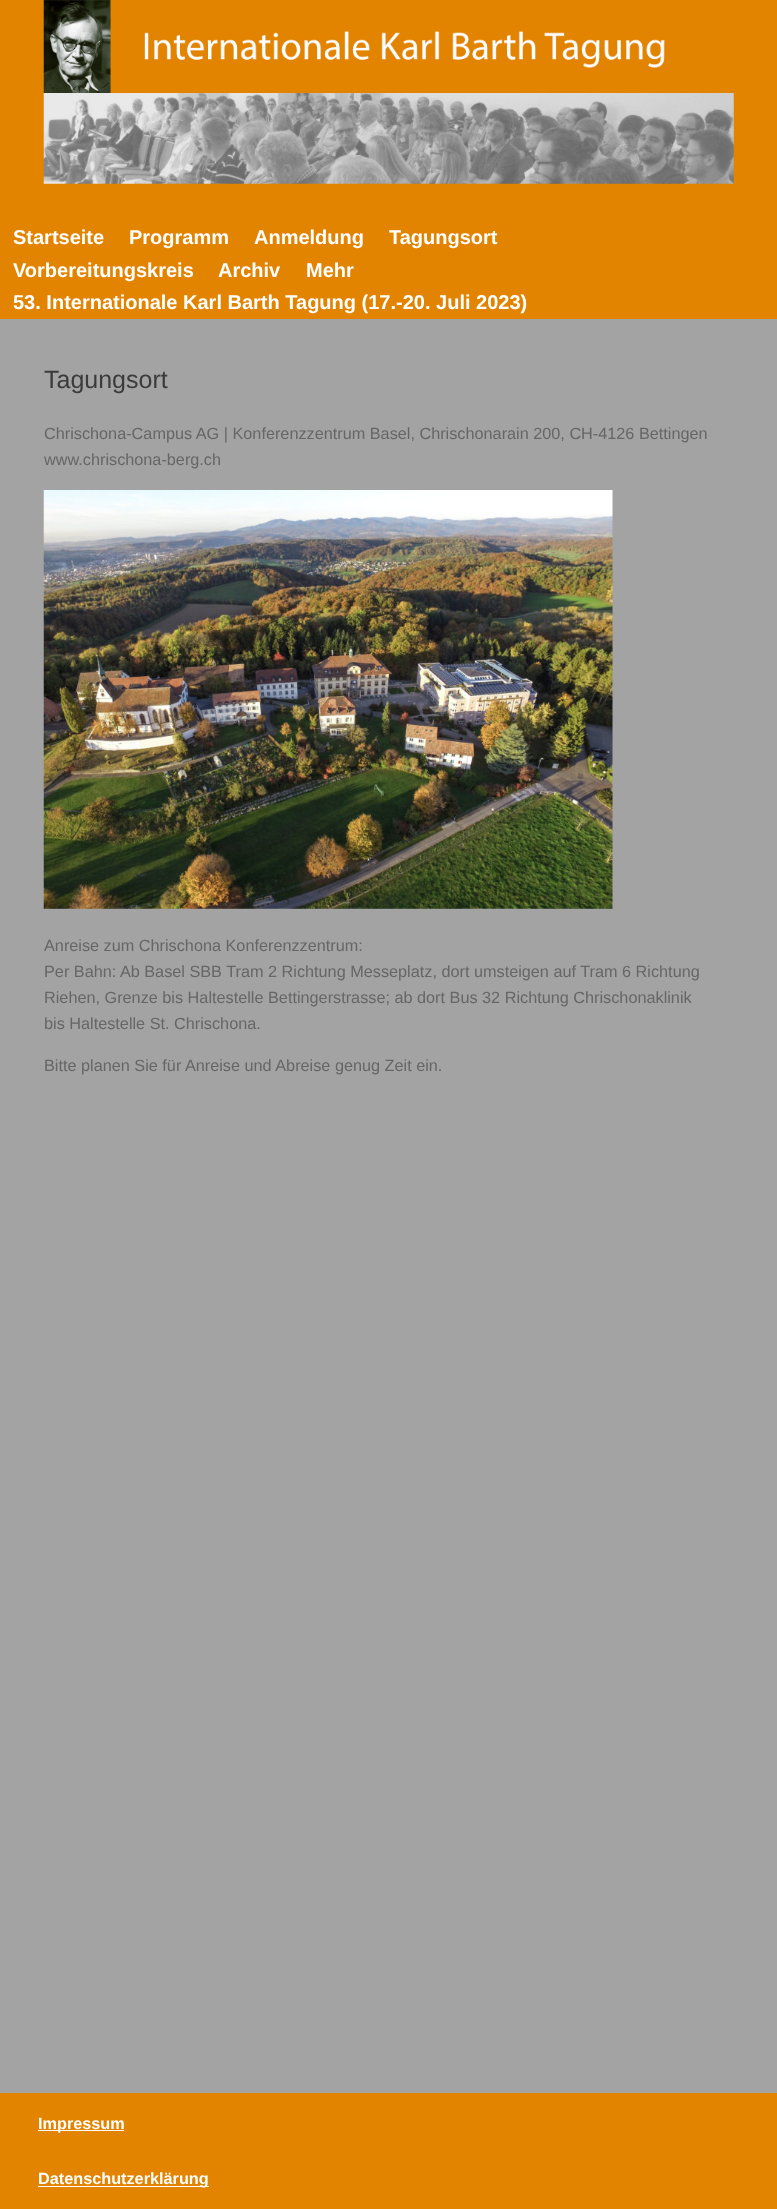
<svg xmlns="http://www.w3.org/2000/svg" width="777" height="2209">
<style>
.a{font:bold 20px Liberation Sans;fill:#fff}
.b{font:25px Liberation Sans;fill:#3b3b3b}
.c{font:16.25px Liberation Sans;fill:#666}
.d{font:bold 16.25px Liberation Sans;fill:#fff}
</style>
<rect width="100%" height="100%" fill="#e28400"/>
<image href="1.png" x="43" y="0" width="691" height="184"/>
<path fill="#a3a3a3" d="M0 319h777v1774H0z"/>
<image href="2.png" x="43" y="490" width="570" height="419"/>
<path fill="#fff" d="M38 2130h86v1H38z"/>
<path fill="#fff" d="M38 2186h171v1H38z"/>
<text class="a" x="13" y="244">Startseite</text>
<text class="a" x="129" y="244">Programm</text>
<text class="a" x="254" y="244">Anmeldung</text>
<text class="a" x="389" y="244">Tagungsort</text>
<text class="a" x="13" y="277">Vorbereitungskreis</text>
<text class="a" x="218" y="277">Archiv</text>
<text class="a" x="306" y="277">Mehr</text>
<text class="a" x="13" y="309">53. Internationale Karl Barth Tagung (17.-20. Juli 2023)</text>
<text class="b" x="44" y="388">Tagungsort</text>
<text class="c" x="44" y="439">Chrischona-Campus AG | Konferenzzentrum Basel, Chrischonarain 200, CH-4126 Bettingen</text>
<text class="c" x="44" y="465">www.chrischona-berg.ch</text>
<text class="c" x="44" y="951">Anreise zum Chrischona Konferenzzentrum:</text>
<text class="c" x="44" y="977">Per Bahn: Ab Basel SBB Tram 2 Richtung Messeplatz, dort umsteigen auf Tram 6 Richtung</text>
<text class="c" x="44" y="1003">Riehen, Grenze bis Haltestelle Bettingerstrasse; ab dort Bus 32 Richtung Chrischonaklinik</text>
<text class="c" x="44" y="1029">bis Haltestelle St. Chrischona.</text>
<text class="c" x="44" y="1071">Bitte planen Sie für Anreise und Abreise genug Zeit ein.</text>
<text class="d" x="38" y="2129">Impressum</text>
<text class="d" x="38" y="2184">Datenschutzerklärung</text>
</svg>
